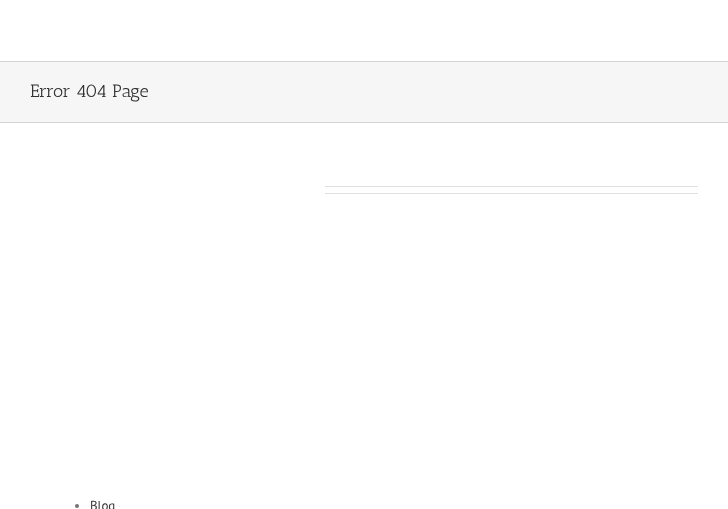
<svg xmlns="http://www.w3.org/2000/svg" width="728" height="509">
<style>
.a{font:18px Antic Slab;fill:#333}
.b{font:13px PT Sans;fill:#333}
</style>
<rect width="100%" height="100%" fill="#fff"/>
<path fill="#f6f6f6" d="M0 62h728v60H0z"/>
<path fill="#d2d3d4" d="M0 61h728v1H0z"/>
<path fill="#d2d3d4" d="M0 122h728v1H0z"/>
<path fill="#e0dede" d="M325 186h373v1H325z"/>
<path fill="#e0dede" d="M325 193h373v1H325z"/>
<circle fill="#737373" cx="77" cy="506" r="2"/>
<text class="a" x="30" y="97">Error 404 Page</text>
<text class="b" x="90" y="510">Blog</text>
</svg>
